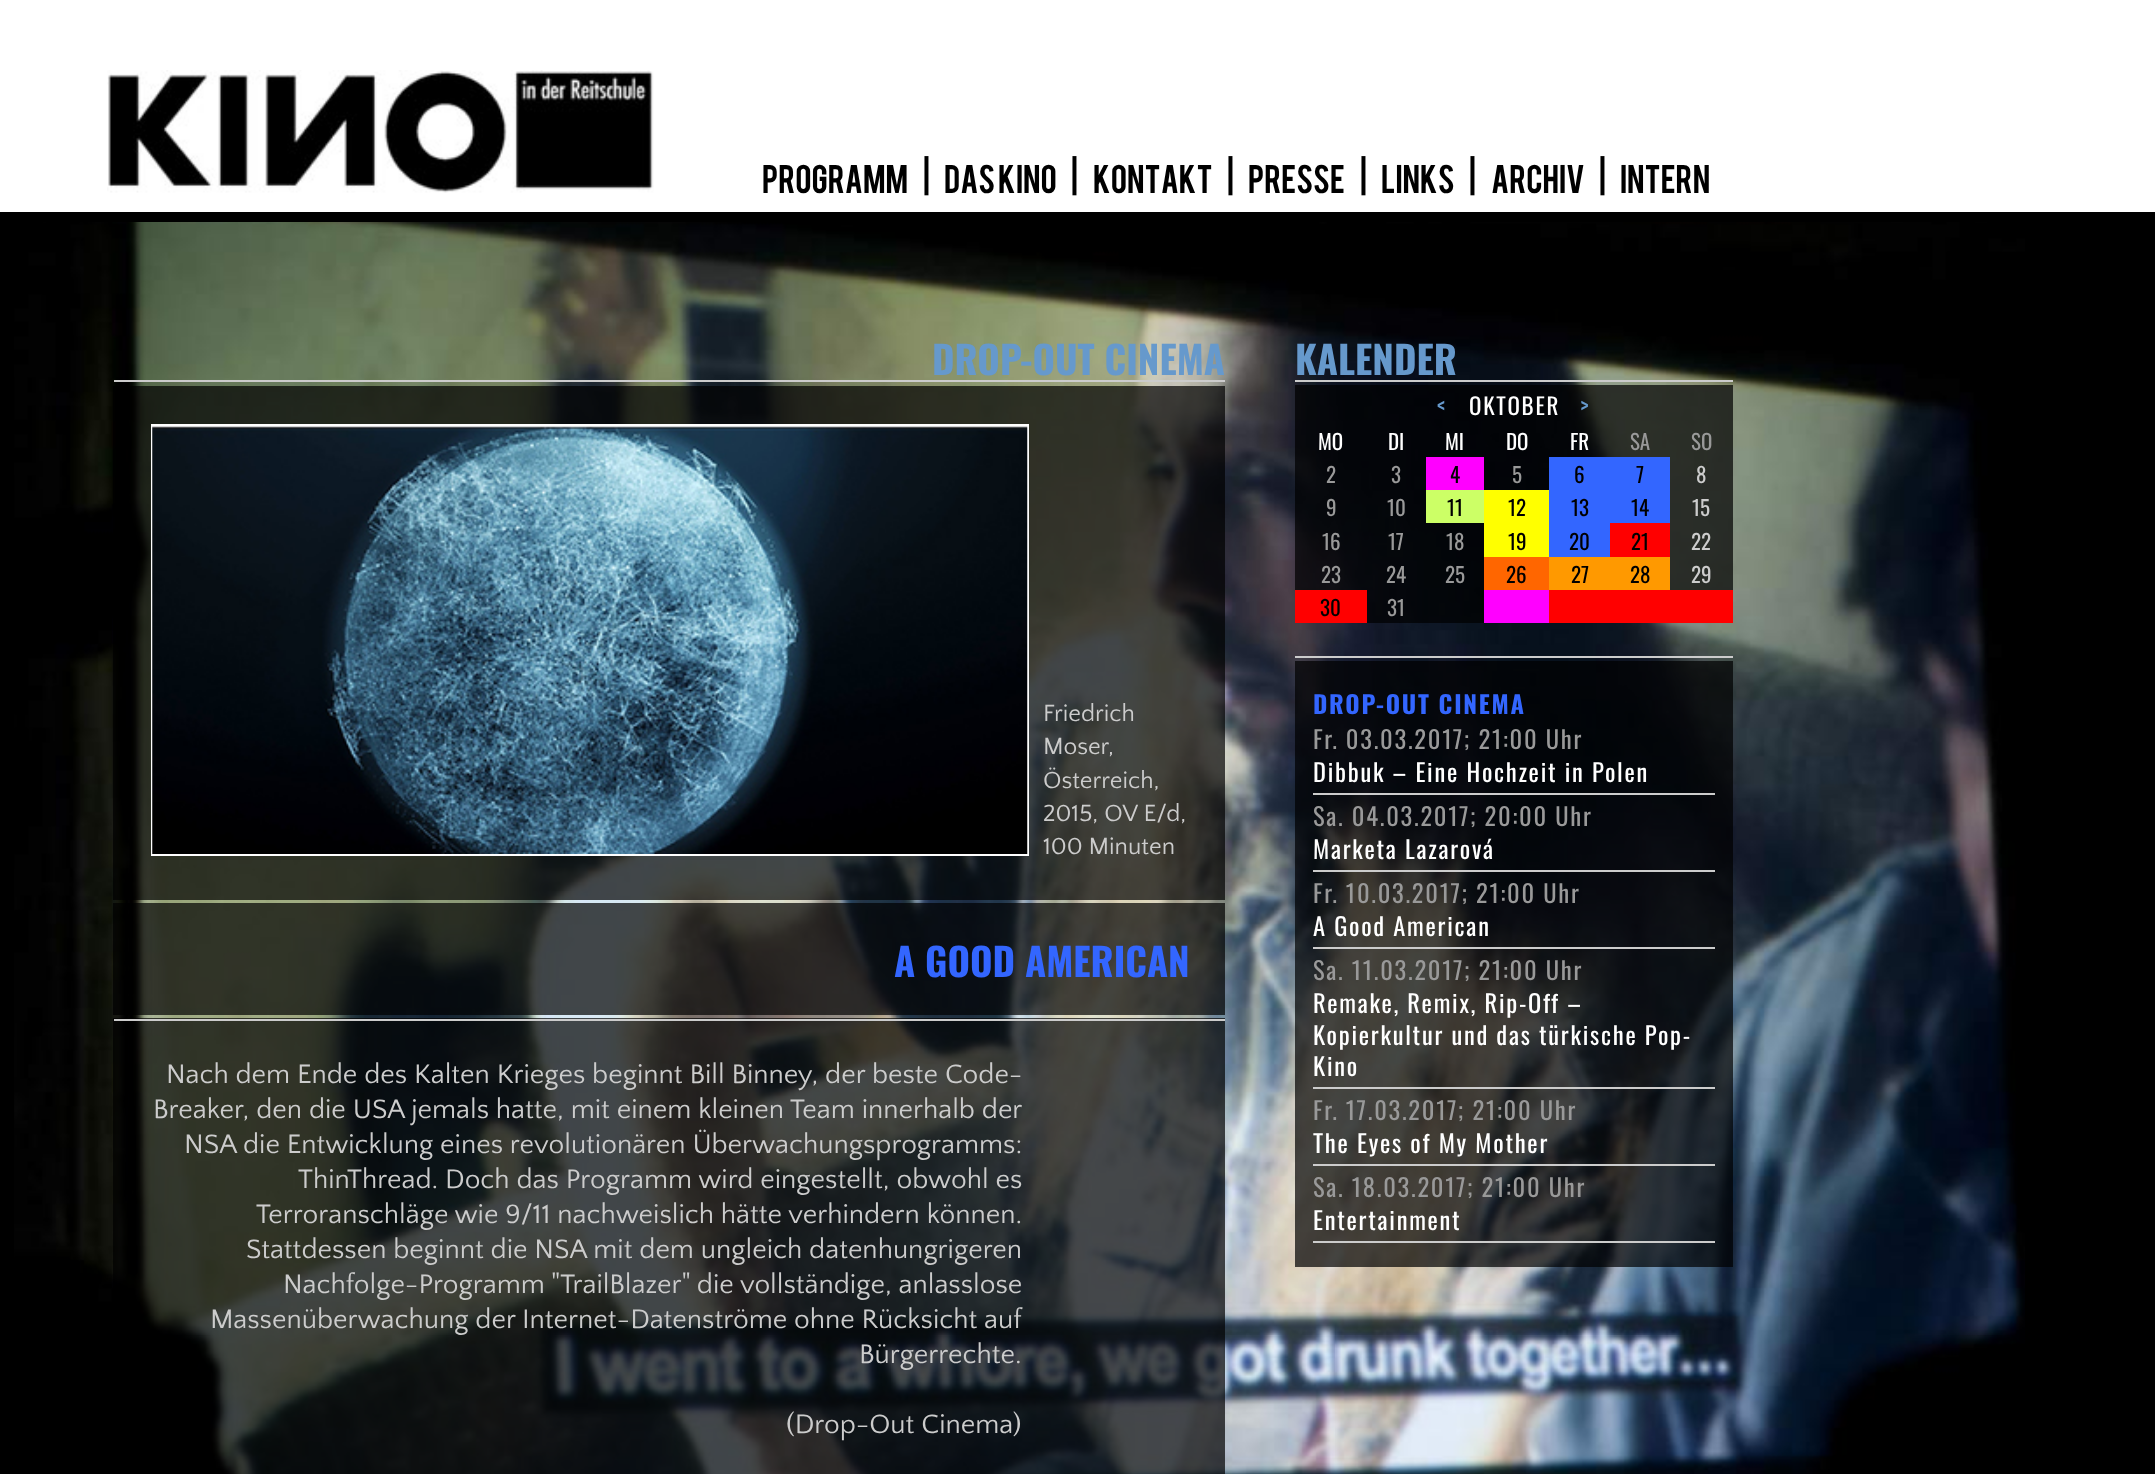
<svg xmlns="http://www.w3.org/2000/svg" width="2155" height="1474">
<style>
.a{font:31.5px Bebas;fill:#000}
.b{font:bold 38.5px Oswald;fill:#69c}
.c{font:24.5px Quattrocento Sans;fill:#ccc}
.d{font:bold 38.5px Oswald;fill:#36f}
.e{font:28px Quattrocento Sans;fill:#ccc}
.f{font:23px Oswald;letter-spacing:1.75px;fill:#69c}
.g{font:23px Oswald;letter-spacing:1.75px;fill:#fff}
.h{font:21px Oswald;fill:#fff}
.i{font:21px Oswald;fill:#999}
.j{font:21px Oswald;fill:#000}
.k{font:21px Oswald;fill:#ccc}
.l{font:bold 24.5px Oswald;letter-spacing:1.75px;fill:#36f}
.m{font:24.5px Oswald;letter-spacing:1.75px;fill:#999}
.n{font:24.5px Oswald;letter-spacing:1.75px;fill:#fff}
</style>
<rect width="100%" height="100%" fill="#000"/>
<image href="1.png" x="14" y="222" width="2011" height="1252"/>
<path fill="#fff" d="M0 0h2155v212H0z"/>
<image href="2.png" x="107" y="70" width="547" height="123"/>
<path fill="#ccc" d="M114 380h1111v2H114z"/>
<path fill="#000000b3" d="M113 386h1112v514H113z"/>
<path fill="none" stroke="#fff" stroke-width="2" d="M152 425h876v430H152z"/>
<image href="3.png" x="152" y="426" width="876" height="428"/>
<path fill="#000000b3" d="M113 903h1112v112H113z"/>
<path fill="#000000b3" d="M113 1018h1112v456H113z"/>
<path fill="#ccc" d="M114 1019h1111v2H114z"/>
<path fill="#ccc" d="M1295 380h438v2H1295z"/>
<path fill="#000000b3" d="M1295 385h438v238H1295z"/>
<path fill="#f0f" d="M1426 457h58v33H1426z"/>
<path fill="#36f" d="M1549 457h121v33H1549z"/>
<path fill="#cf6" d="M1426 490h58v33H1426z"/>
<path fill="#ff0" d="M1484 490h65v67H1484z"/>
<path fill="#36f" d="M1549 490h121v33H1549z"/>
<path fill="#36f" d="M1549 523h61v34H1549z"/>
<path fill="#f00" d="M1610 523h60v34H1610z"/>
<path fill="#f60" d="M1484 557h65v33H1484z"/>
<path fill="#f90" d="M1549 557h121v33H1549z"/>
<path fill="#f00" d="M1295 590h72v33H1295z"/>
<path fill="#f0f" d="M1484 590h65v33H1484z"/>
<path fill="#f00" d="M1549 590h184v33H1549z"/>
<path fill="#ccc" d="M1295 656h438v2H1295z"/>
<path fill="#000000b3" d="M1295 661h438v606H1295z"/>
<path fill="#ccc" d="M1313 793h402v2H1313z"/>
<path fill="#ccc" d="M1313 870h402v2H1313z"/>
<path fill="#ccc" d="M1313 947h402v2H1313z"/>
<path fill="#ccc" d="M1313 1087h402v2H1313z"/>
<path fill="#ccc" d="M1313 1164h402v2H1313z"/>
<path fill="#ccc" d="M1313 1241h402v2H1313z"/>
<text class="a" x="762" y="193">PROGRAMM</text>
<text class="a" x="923" y="193">|</text>
<text class="a" x="944" y="193">DAS KINO</text>
<text class="a" x="1071" y="193">|</text>
<text class="a" x="1093" y="193">KONTAKT</text>
<text class="a" x="1227" y="193">|</text>
<text class="a" x="1248" y="193">PRESSE</text>
<text class="a" x="1360" y="193">|</text>
<text class="a" x="1381" y="193">LINKS</text>
<text class="a" x="1469" y="193">|</text>
<text class="a" x="1491" y="193">ARCHIV</text>
<text class="a" x="1599" y="193">|</text>
<text class="a" x="1620" y="193">INTERN</text>
<text class="b" x="932" y="375">DROP-OUT CINEMA</text>
<text class="c" x="1043" y="721">Friedrich</text>
<text class="c" x="1043" y="754">Moser,</text>
<text class="c" x="1043" y="788">Österreich,</text>
<text class="c" x="1043" y="821">2015, OV E/d,</text>
<text class="c" x="1043" y="854">100 Minuten</text>
<text class="d" x="894" y="977">A GOOD AMERICAN</text>
<text class="e" x="166" y="1083">Nach dem Ende des Kalten Krieges beginnt Bill Binney, der beste Code-</text>
<text class="e" x="153" y="1118">Breaker, den die USA jemals hatte, mit einem kleinen Team innerhalb der</text>
<text class="e" x="184" y="1153">NSA die Entwicklung eines revolutionären Überwachungsprogramms:</text>
<text class="e" x="298" y="1188">ThinThread. Doch das Programm wird eingestellt, obwohl es</text>
<text class="e" x="256" y="1223">Terroranschläge wie 9/11 nachweislich hätte verhindern können.</text>
<text class="e" x="246" y="1258">Stattdessen beginnt die NSA mit dem ungleich datenhungrigeren</text>
<text class="e" x="283" y="1293">Nachfolge-Programm "TrailBlazer" die vollständige, anlasslose</text>
<text class="e" x="210" y="1328">Massenüberwachung der Internet-Datenströme ohne Rücksicht auf</text>
<text class="e" x="859" y="1363">Bürgerrechte.</text>
<text class="e" x="786" y="1433">(Drop-Out Cinema)</text>
<text class="b" x="1295" y="375">KALENDER</text>
<text class="f" x="1437" y="415">&lt;</text>
<text class="g" x="1469" y="415">OKTOBER</text>
<text class="f" x="1580" y="415">&gt;</text>
<text class="h" x="1318" y="450">MO</text>
<text class="h" x="1388" y="450">DI</text>
<text class="h" x="1445" y="450">MI</text>
<text class="h" x="1506" y="450">DO</text>
<text class="h" x="1570" y="450">FR</text>
<text class="i" x="1630" y="450">SA</text>
<text class="i" x="1691" y="450">SO</text>
<text class="i" x="1326" y="483">2</text>
<text class="i" x="1391" y="483">3</text>
<text class="j" x="1450" y="483">4</text>
<text class="i" x="1512" y="483">5</text>
<text class="j" x="1574" y="483">6</text>
<text class="j" x="1636" y="483">7</text>
<text class="k" x="1696" y="483">8</text>
<text class="i" x="1326" y="516">9</text>
<text class="i" x="1387" y="516">10</text>
<text class="j" x="1447" y="516">11</text>
<text class="j" x="1508" y="516">12</text>
<text class="j" x="1571" y="516">13</text>
<text class="j" x="1631" y="516">14</text>
<text class="k" x="1692" y="516">15</text>
<text class="i" x="1322" y="550">16</text>
<text class="i" x="1388" y="550">17</text>
<text class="i" x="1446" y="550">18</text>
<text class="j" x="1508" y="550">19</text>
<text class="j" x="1569" y="550">20</text>
<text class="j" x="1631" y="550">21</text>
<text class="k" x="1691" y="550">22</text>
<text class="i" x="1321" y="583">23</text>
<text class="i" x="1386" y="583">24</text>
<text class="i" x="1445" y="583">25</text>
<text class="j" x="1506" y="583">26</text>
<text class="j" x="1571" y="583">27</text>
<text class="j" x="1630" y="583">28</text>
<text class="k" x="1691" y="583">29</text>
<text class="j" x="1320" y="616">30</text>
<text class="i" x="1387" y="616">31</text>
<text class="l" x="1313" y="714">DROP-OUT CINEMA</text>
<text class="m" x="1313" y="749">Fr. 03.03.2017; 21:00 Uhr</text>
<text class="n" x="1313" y="782">Dibbuk – Eine Hochzeit in Polen</text>
<text class="m" x="1313" y="826">Sa. 04.03.2017; 20:00 Uhr</text>
<text class="n" x="1313" y="859">Marketa Lazarová</text>
<text class="m" x="1313" y="903">Fr. 10.03.2017; 21:00 Uhr</text>
<text class="n" x="1313" y="936">A Good American</text>
<text class="m" x="1313" y="980">Sa. 11.03.2017; 21:00 Uhr</text>
<text class="n" x="1313" y="1013">Remake, Remix, Rip-Off –</text>
<text class="n" x="1313" y="1045">Kopierkultur und das türkische Pop-</text>
<text class="n" x="1313" y="1076">Kino</text>
<text class="m" x="1313" y="1120">Fr. 17.03.2017; 21:00 Uhr</text>
<text class="n" x="1313" y="1153">The Eyes of My Mother</text>
<text class="m" x="1313" y="1197">Sa. 18.03.2017; 21:00 Uhr</text>
<text class="n" x="1313" y="1230">Entertainment</text>
</svg>
